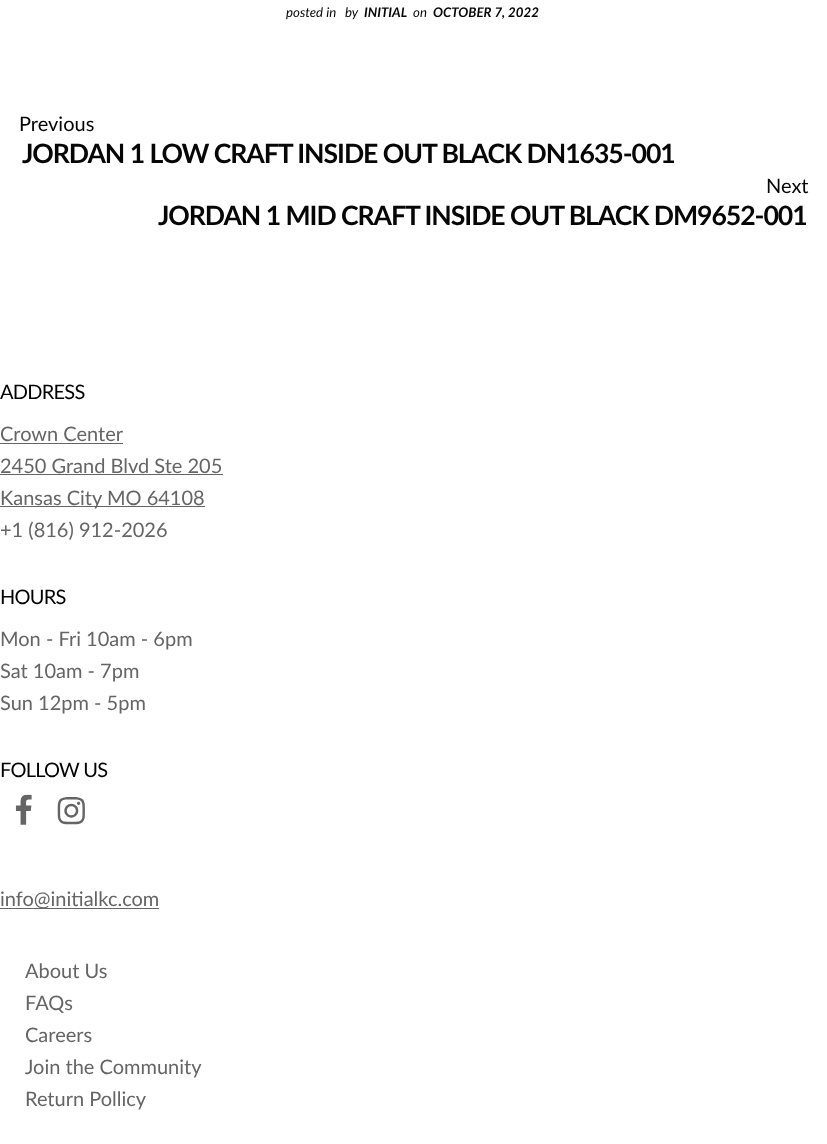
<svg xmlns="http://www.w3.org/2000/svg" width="827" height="1144">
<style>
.a{font:italic 13.25px Lato;fill:#060606}
.b{font:italic bold 13.25px Lato;fill:#060606}
.c{font:20px Lato;fill:#060606}
.d{font:bold 26.6px Lato;letter-spacing:-1.05px;fill:#060606}
.e{font:20px Lato;letter-spacing:-0.75px;fill:#000}
.f{font:20px Lato;fill:#656565}
</style>
<rect width="100%" height="100%" fill="#fff"/>
<path fill="#656565" d="M0 443h123v1H0z"/>
<path fill="#656565" d="M0 474h223v1H0z"/>
<path fill="#656565" d="M0 506h205v1H0z"/>
<image href="1.png" x="15" y="794" width="17" height="31"/>
<image href="2.png" x="57" y="797" width="28" height="28"/>
<path fill="#656565" d="M0 908h159v1H0z"/>
<text class="a" x="286" y="17">posted in</text>
<text class="a" x="345" y="17">by</text>
<text class="b" x="364" y="17">INITIAL</text>
<text class="a" x="413" y="17">on</text>
<text class="b" x="433" y="17">OCTOBER 7, 2022</text>
<text class="c" x="19" y="131">Previous</text>
<text class="d" x="22" y="163">JORDAN 1 LOW CRAFT INSIDE OUT BLACK DN1635-001</text>
<text class="c" x="766" y="193">Next</text>
<text class="d" x="158" y="225">JORDAN 1 MID CRAFT INSIDE OUT BLACK DM9652-001</text>
<text class="e" x="0" y="399">ADDRESS</text>
<text class="f" x="0" y="441">Crown Center</text>
<text class="f" x="0" y="473">2450 Grand Blvd Ste 205</text>
<text class="f" x="0" y="505">Kansas City MO 64108</text>
<text class="f" x="0" y="537">+1 (816) 912-2026</text>
<text class="e" x="0" y="604">HOURS</text>
<text class="f" x="0" y="646">Mon - Fri 10am - 6pm</text>
<text class="f" x="0" y="678">Sat 10am - 7pm</text>
<text class="f" x="0" y="710">Sun 12pm - 5pm</text>
<text class="e" x="0" y="777">FOLLOW US</text>
<text class="f" x="0" y="906">info@initialkc.com</text>
<text class="f" x="25" y="978">About Us</text>
<text class="f" x="25" y="1010">FAQs</text>
<text class="f" x="25" y="1042">Careers</text>
<text class="f" x="25" y="1074">Join the Community</text>
<text class="f" x="25" y="1106">Return Pollicy</text>
</svg>
